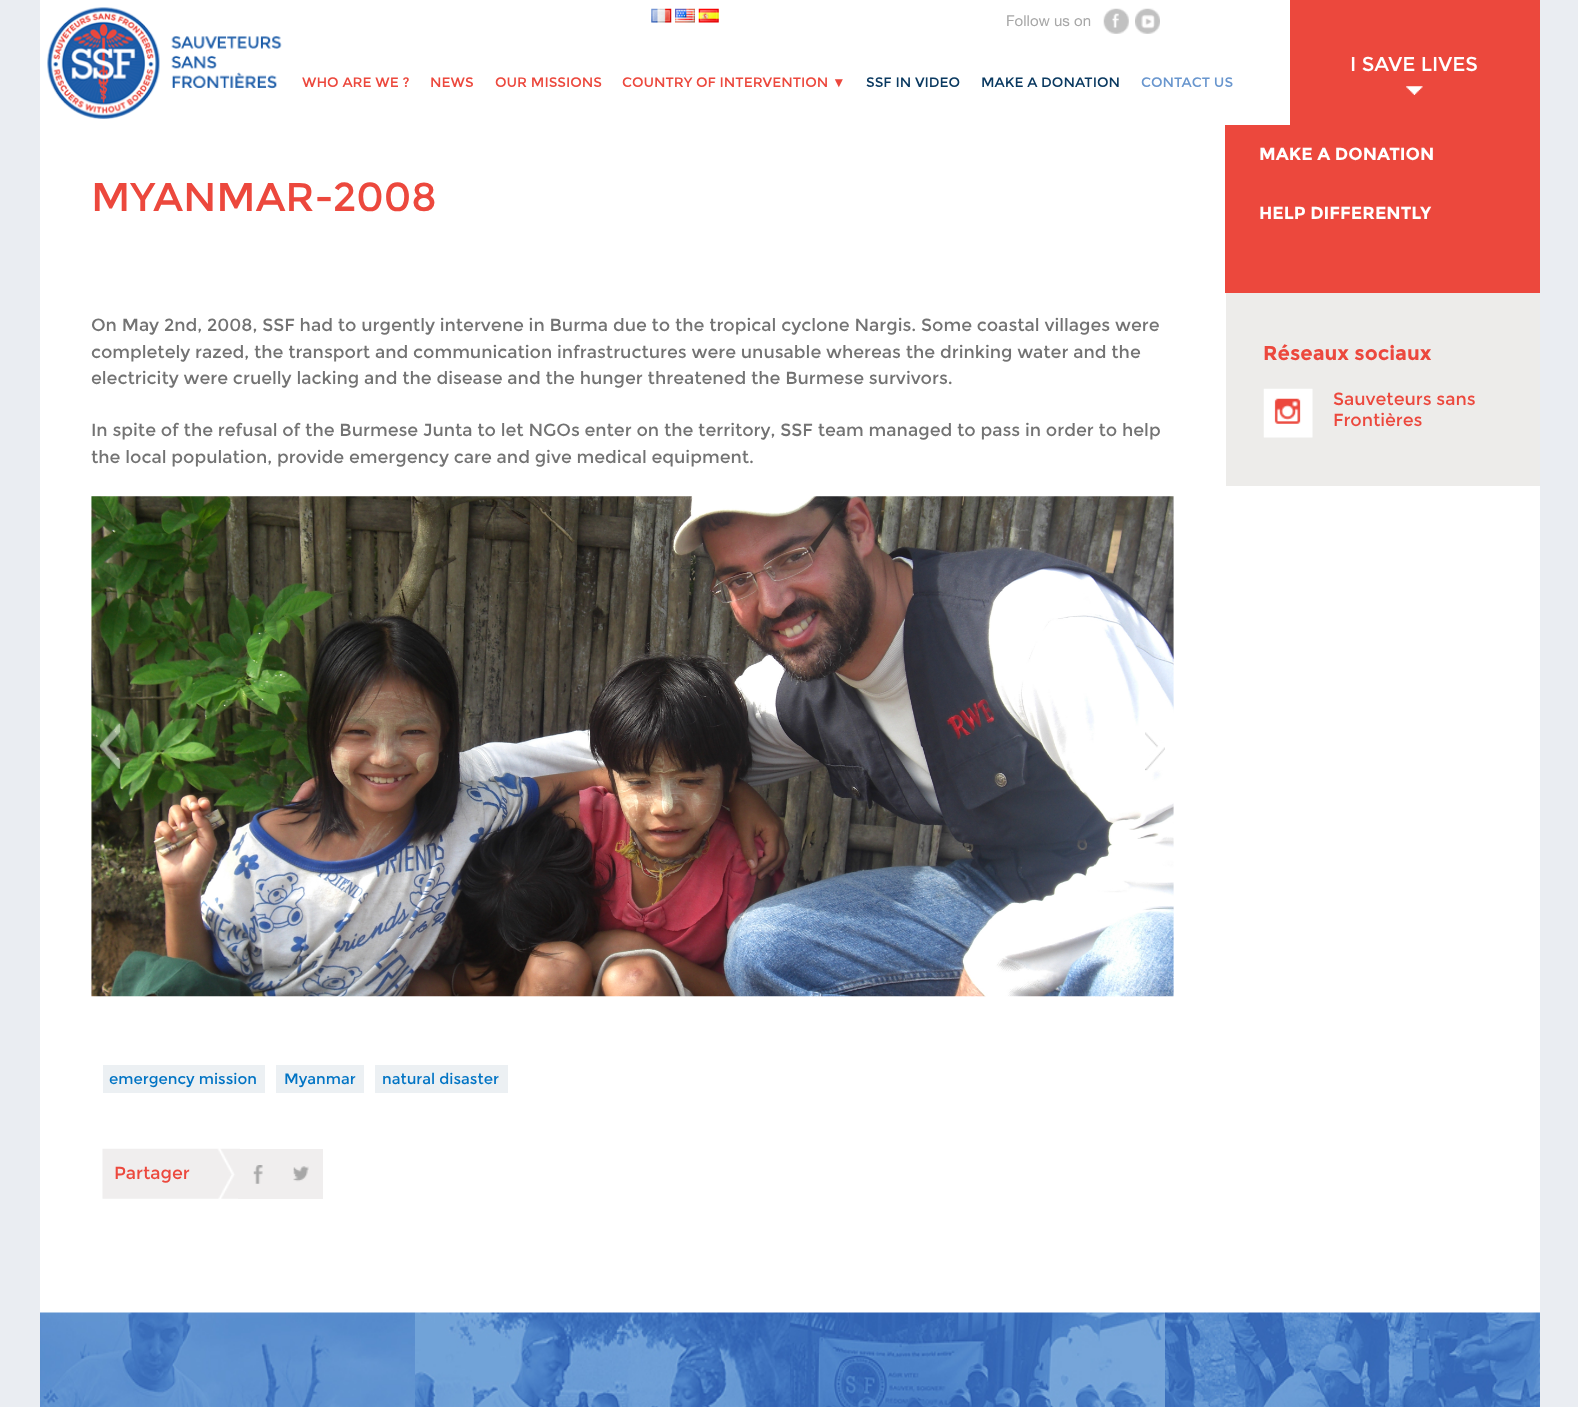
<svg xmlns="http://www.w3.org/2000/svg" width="1578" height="1407">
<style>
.a{font:15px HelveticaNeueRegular;fill:#a7a7a7}
.b{font:13.75px Montserrat;fill:#ec483d}
.c{font:13.75px Liberation Sans;fill:#ec483d}
.d{font:13.75px Montserrat;fill:#0a3960}
.e{font:13.75px Montserrat;fill:#6996ce}
.f{font:20px Montserrat;fill:#fff}
.g{font:bold 17.5px Montserrat;fill:#fff}
.h{font:40px Montserrat;fill:#ec483d}
.i{font:17.5px Montserrat;fill:#737373}
.j{font:15px Montserrat;fill:#0274c4}
.k{font:17.5px Montserrat;fill:#ec483d}
.l{font:bold 20px Montserrat;fill:#ec483d}
</style>
<rect width="100%" height="100%" fill="#eaedf2"/>
<path fill="#fff" d="M40 0h1250v125H40z"/>
<image href="1.png" x="47" y="7" width="235" height="112"/>
<image href="2.png" x="651" y="8" width="21" height="15"/>
<image href="3.png" x="675" y="8" width="20" height="15"/>
<image href="4.png" x="698" y="8" width="21" height="15"/>
<image href="5.png" x="1103" y="8" width="26" height="26"/>
<image href="6.png" x="1135" y="8" width="25" height="26"/>
<path fill="#ec483d" d="M1290 0h250v125H1290z"/>
<image href="7.png" x="1406" y="86" width="17" height="9"/>
<path fill="#fff" d="M40 125h1500v1188H40z"/>
<path fill="#ec483d" d="M1225 125h315v168H1225z"/>
<image href="8.png" x="91" y="496" width="1083" height="501"/>
<image href="9.png" x="99" y="723" width="22" height="47"/>
<image href="10.png" x="1145" y="732" width="20" height="39"/>
<path fill="#ecf0f3" d="M103 1065h162v28H103z"/>
<path fill="#ecf0f3" d="M276 1065h88v28H276z"/>
<path fill="#ecf0f3" d="M375 1065h133v28H375z"/>
<image href="11.png" x="102" y="1148" width="138" height="51"/>
<path fill="#f0eeee" d="M238 1149h85v50H238z"/>
<image href="12.png" x="293" y="1166" width="16" height="16"/>
<image href="13.png" x="253" y="1165" width="10" height="19"/>
<path fill="#edecea" d="M1226 293h314v193H1226z"/>
<image href="14.png" x="1263" y="388" width="50" height="50"/>
<image href="15.png" x="40" y="1312" width="375" height="95"/>
<image href="16.png" x="415" y="1312" width="375" height="95"/>
<image href="17.png" x="790" y="1312" width="375" height="95"/>
<image href="18.png" x="1165" y="1312" width="375" height="95"/>
<text class="a" x="1006" y="26">Follow us on</text>
<text class="b" x="302" y="87">WHO ARE WE ?</text>
<text class="b" x="430" y="87">NEWS</text>
<text class="b" x="495" y="87">OUR MISSIONS</text>
<text class="b" x="622" y="87">COUNTRY OF INTERVENTION</text>
<text class="c" x="832" y="87">▼</text>
<text class="d" x="866" y="87">SSF IN VIDEO</text>
<text class="d" x="981" y="87">MAKE A DONATION</text>
<text class="e" x="1141" y="87">CONTACT US</text>
<text class="f" x="1350" y="71">I SAVE LIVES</text>
<text class="g" x="1259" y="160">MAKE A DONATION</text>
<text class="g" x="1259" y="219">HELP DIFFERENTLY</text>
<text class="h" x="91" y="211">MYANMAR-2008</text>
<text class="i" x="91" y="331">On May 2nd, 2008, SSF had to urgently intervene in Burma due to the tropical cyclone Nargis. Some coastal villages were</text>
<text class="i" x="91" y="358">completely razed, the transport and communication infrastructures were unusable whereas the drinking water and the</text>
<text class="i" x="91" y="384">electricity were cruelly lacking and the disease and the hunger threatened the Burmese survivors.</text>
<text class="i" x="91" y="436">In spite of the refusal of the Burmese Junta to let NGOs enter on the territory, SSF team managed to pass in order to help</text>
<text class="i" x="91" y="463">the local population, provide emergency care and give medical equipment.</text>
<text class="j" x="109" y="1084">emergency mission</text>
<text class="j" x="284" y="1084">Myanmar</text>
<text class="j" x="382" y="1084">natural disaster</text>
<text class="k" x="114" y="1179">Partager</text>
<text class="l" x="1263" y="360">Réseaux sociaux</text>
<text class="k" x="1333" y="405">Sauveteurs sans</text>
<text class="k" x="1333" y="426">Frontières</text>
</svg>
